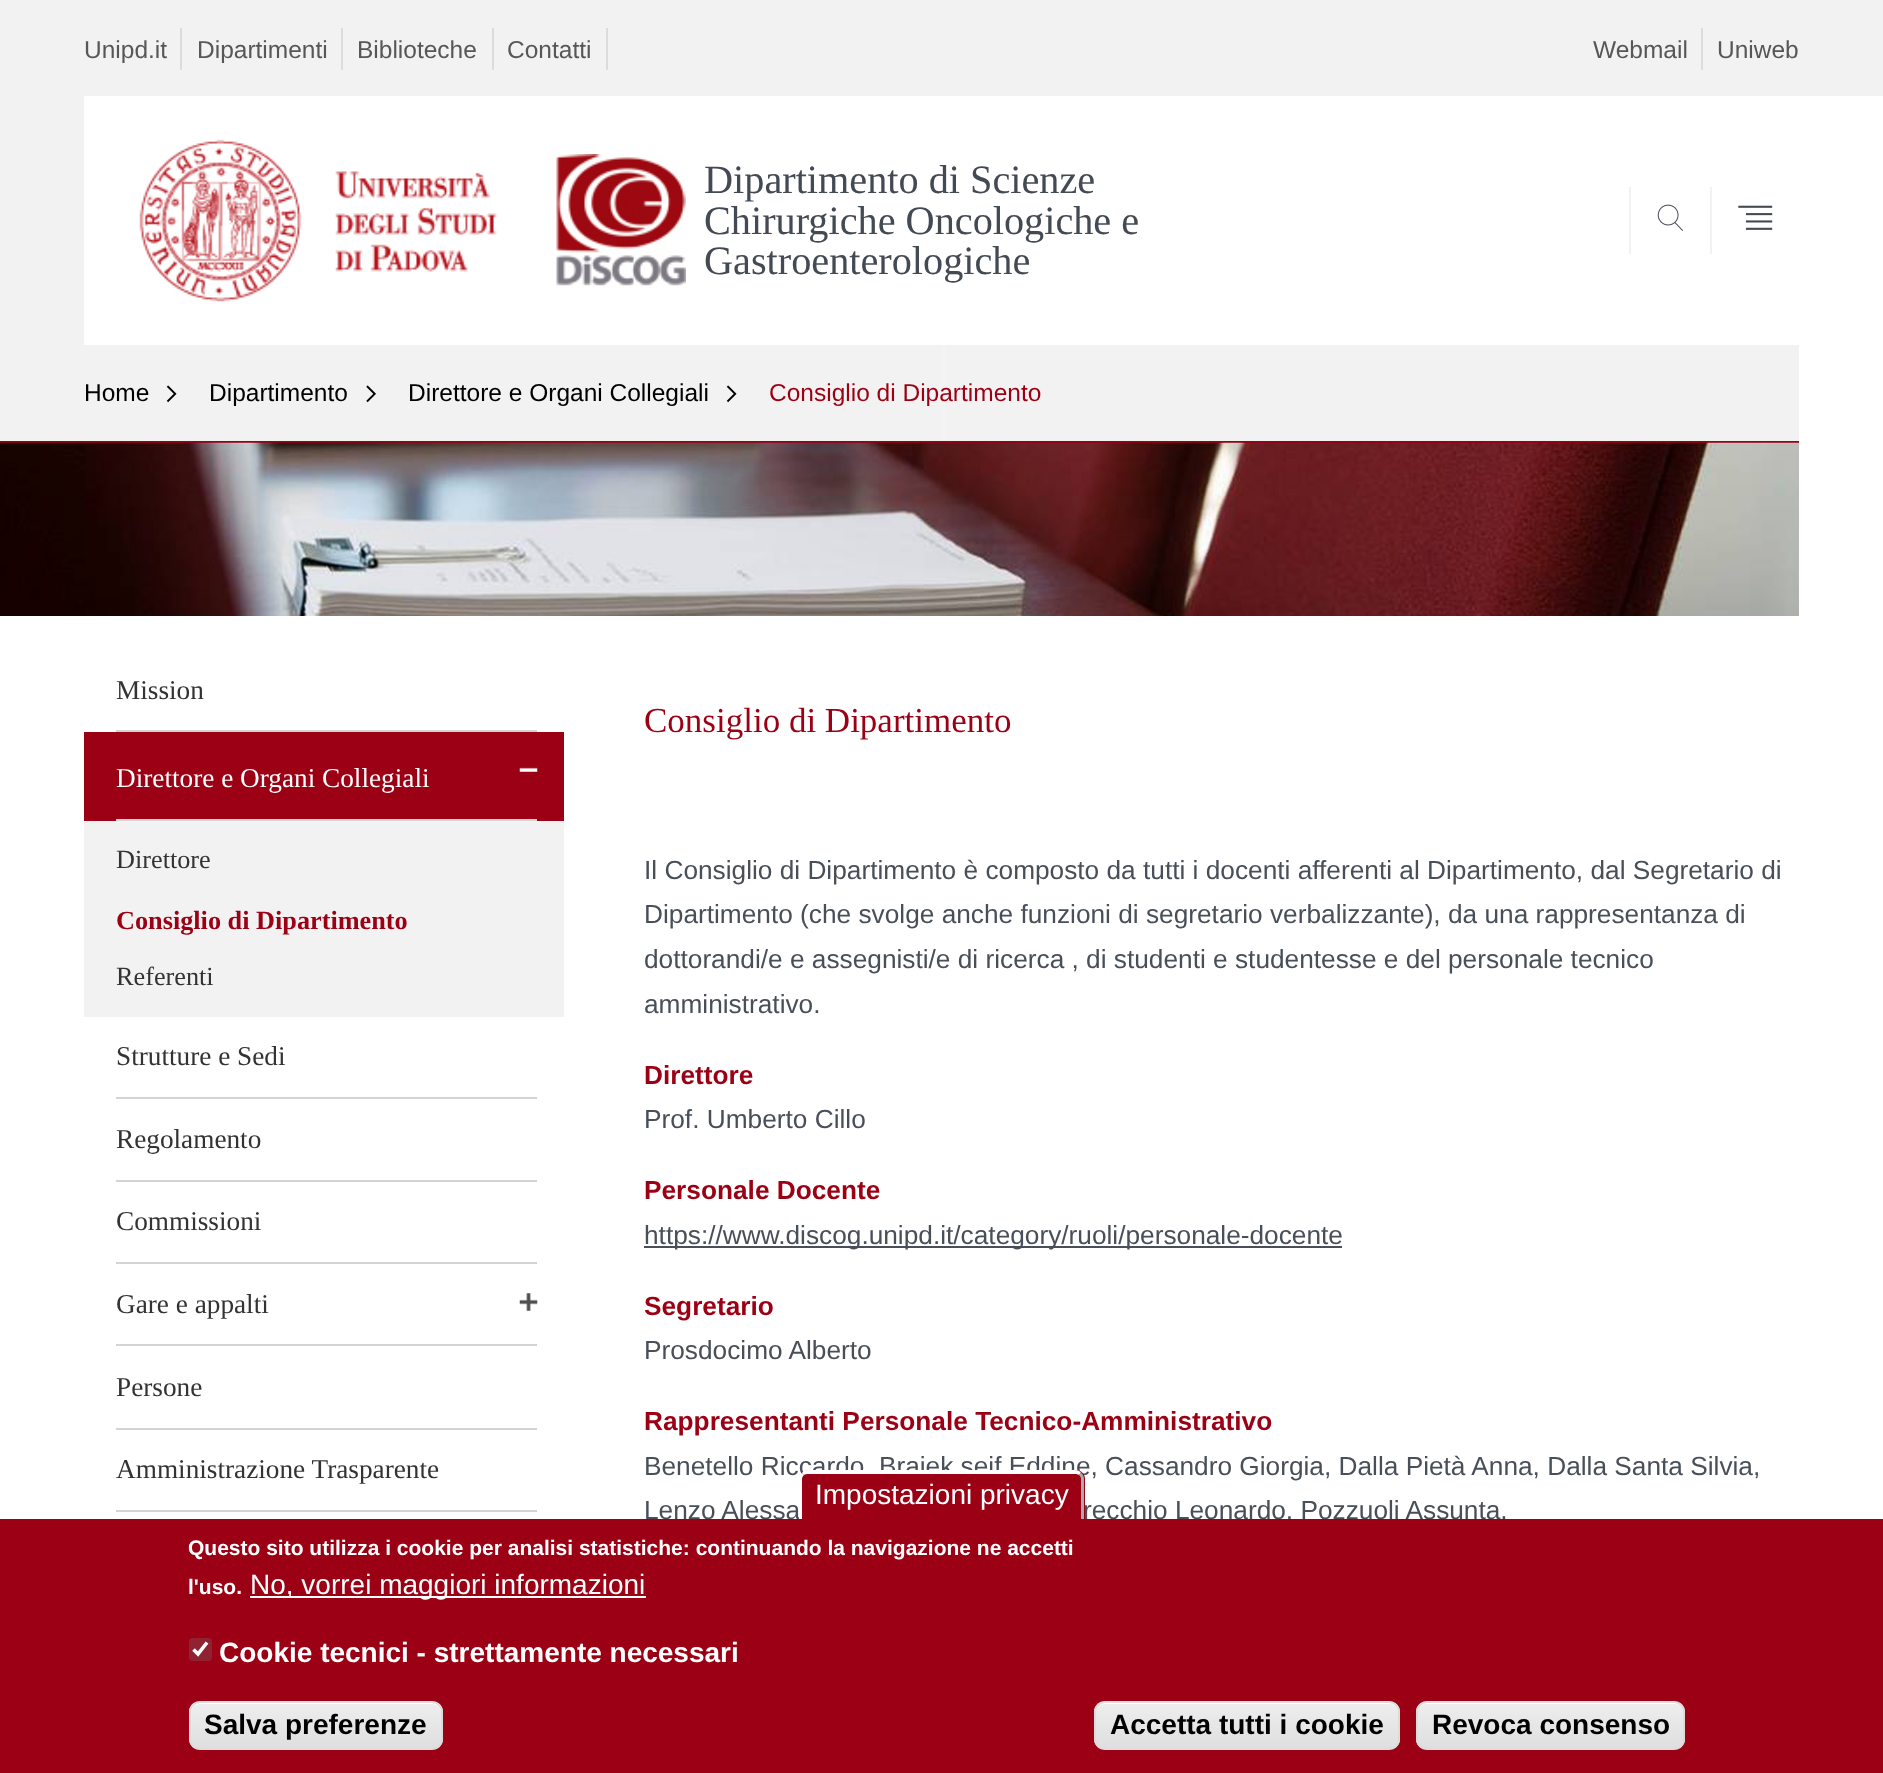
<svg xmlns="http://www.w3.org/2000/svg" width="1883" height="1773">
<style>
.a{font:24.5px Liberation Sans;fill:#575757}
.b{font:40.25px Liberation Serif;fill:#434a53}
.c{font:24.5px Liberation Sans;fill:#000}
.d{font:24.5px Liberation Sans;fill:#9b0014}
.e{font:27.25px Liberation Serif;fill:#333}
.f{font:27.25px Liberation Serif;fill:#fff}
.g{font:26.25px Liberation Serif;fill:#333}
.h{font:bold 26.25px Liberation Serif;fill:#9b0014}
.i{font:35px Liberation Serif;fill:#9b0014}
.j{font:26.25px Liberation Sans;fill:#484f59}
.k{font:bold 26.25px Liberation Sans;fill:#9b0014}
.l{font:28px Liberation Sans;fill:#fff}
.m{font:bold 21px Liberation Sans;fill:#fff}
.n{font:bold 28px Liberation Sans;fill:#fff}
.o{font:bold 28px Liberation Sans;fill:#000}
</style>
<defs>
<linearGradient id="g1" gradientUnits="userSpaceOnUse" x1="0" y1="221" x2="1883" y2="220"><stop offset="0" stop-color="#9b0014" stop-opacity="0"/><stop offset="0.5" stop-color="#fff" stop-opacity="0"/><stop offset="0.51" stop-color="#fff"/><stop offset="1" stop-color="#fff"/></linearGradient>
<linearGradient id="g2" gradientUnits="userSpaceOnUse" x1="0" y1="393" x2="1883" y2="393"><stop offset="0" stop-color="#f2f2f2"/><stop offset="0.5" stop-color="#f2f2f2"/><stop offset="0.51" stop-color="#fff"/><stop offset="1" stop-color="#fff"/></linearGradient>
<linearGradient id="g3" gradientUnits="userSpaceOnUse" x1="0" y1="442" x2="1883" y2="442"><stop offset="0" stop-color="#9b0014"/><stop offset="0.5" stop-color="#9b0014"/><stop offset="0.51" stop-color="#fff"/><stop offset="1" stop-color="#fff"/></linearGradient>
<clipPath id="clip1"><rect x="189" y="1701" width="254" height="49" rx="11"/></clipPath>
<linearGradient id="g4" gradientUnits="userSpaceOnUse" x1="316" y1="1703" x2="316" y2="1748"><stop offset="0.05" stop-color="#ededed"/><stop offset="1" stop-color="#dfdfdf"/></linearGradient>
<clipPath id="clip2"><rect x="1094" y="1701" width="306" height="49" rx="11"/></clipPath>
<linearGradient id="g5" gradientUnits="userSpaceOnUse" x1="1247" y1="1703" x2="1247" y2="1748"><stop offset="0.05" stop-color="#ededed"/><stop offset="1" stop-color="#dfdfdf"/></linearGradient>
<clipPath id="clip3"><rect x="1416" y="1701" width="269" height="49" rx="11"/></clipPath>
<linearGradient id="g6" gradientUnits="userSpaceOnUse" x1="1551" y1="1703" x2="1551" y2="1748"><stop offset="0.05" stop-color="#ededed"/><stop offset="1" stop-color="#dfdfdf"/></linearGradient>
</defs>
<rect width="100%" height="100%" fill="#fff"/>
<path fill="#f2f2f2" d="M0 0h1883v345H0z"/>
<path fill="#dcdcdc" d="M180 28h2v42H180z"/>
<path fill="#dcdcdc" d="M341 28h2v42H341z"/>
<path fill="#dcdcdc" d="M492 28h2v42H492z"/>
<path fill="#dcdcdc" d="M606 28h2v42H606z"/>
<path fill="#dcdcdc" d="M1701 28h2v42H1701z"/>
<path fill="url(#g1)" d="M1799 96h84v249H1799z"/>
<path fill="#fff" d="M84 96h1715v249H84z"/>
<image href="1.png" x="139" y="139" width="359" height="163"/>
<image href="2.png" x="556" y="154" width="130" height="132"/>
<path fill="#f2f2f2" d="M1629 187h2v67H1629z"/>
<image href="3.png" x="1657" y="204" width="26" height="27"/>
<path fill="#f2f2f2" d="M1710 187h2v67H1710z"/>
<image href="4.png" x="1738" y="205" width="35" height="25"/>
<path fill="url(#g2)" d="M0 345h957v96H0z"/>
<path fill="#f2f2f2" d="M945 345h854v96H945z"/>
<image href="5.png" x="166" y="385" width="11" height="18"/>
<image href="6.png" x="366" y="385" width="10" height="18"/>
<image href="5.png" x="726" y="385" width="11" height="18"/>
<path fill="url(#g3)" d="M0 441h960v2H0z"/>
<path fill="#9b0014" d="M942 441h857v2H942z"/>
<path fill="#d4d4d4" d="M116 730h421v2H116z"/>
<path fill="#9b0014" d="M84 732h480v89H84z"/>
<path fill="#d4d4d4" d="M116 819h421v2H116z"/>
<image href="7.png" x="519" y="767" width="19" height="5"/>
<path fill="#f2f2f2" d="M84 821h480v196H84z"/>
<path fill="#d4d4d4" d="M116 1097h421v2H116z"/>
<path fill="#d4d4d4" d="M116 1180h421v2H116z"/>
<path fill="#d4d4d4" d="M116 1262h421v2H116z"/>
<path fill="#d4d4d4" d="M116 1344h421v2H116z"/>
<image href="8.png" x="519" y="1293" width="19" height="18"/>
<path fill="#d4d4d4" d="M116 1428h421v2H116z"/>
<path fill="#d4d4d4" d="M116 1510h421v2H116z"/>
<image href="9.png" x="0" y="442" width="1799" height="174"/>
<path fill="#484f59" d="M644 1246h698v2H644z"/>
<text class="a" x="84" y="58">Unipd.it</text>
<text class="a" x="197" y="58">Dipartimenti</text>
<text class="a" x="357" y="58">Biblioteche</text>
<text class="a" x="507" y="58">Contatti</text>
<text class="a" x="1593" y="58">Webmail</text>
<text class="a" x="1717" y="58">Uniweb</text>
<text class="b" x="704" y="193">Dipartimento di Scienze</text>
<text class="b" x="704" y="234">Chirurgiche Oncologiche e</text>
<text class="b" x="704" y="274">Gastroenterologiche</text>
<text class="c" x="84" y="401">Home</text>
<text class="c" x="209" y="401">Dipartimento</text>
<text class="c" x="408" y="401">Direttore e Organi Collegiali</text>
<text class="d" x="769" y="401">Consiglio di Dipartimento</text>
<text class="e" x="116" y="699">Mission</text>
<text class="f" x="116" y="787">Direttore e Organi Collegiali</text>
<text class="g" x="116" y="868">Direttore</text>
<text class="h" x="116" y="929">Consiglio di Dipartimento</text>
<text class="g" x="116" y="985">Referenti</text>
<text class="e" x="116" y="1065">Strutture e Sedi</text>
<text class="e" x="116" y="1148">Regolamento</text>
<text class="e" x="116" y="1230">Commissioni</text>
<text class="e" x="116" y="1313">Gare e appalti</text>
<text class="e" x="116" y="1396">Persone</text>
<text class="e" x="116" y="1478">Amministrazione Trasparente</text>
<text class="i" x="644" y="732">Consiglio di Dipartimento</text>
<text class="j" x="644" y="879">Il Consiglio di Dipartimento è composto da tutti i docenti afferenti al Dipartimento, dal Segretario di</text>
<text class="j" x="644" y="923">Dipartimento (che svolge anche funzioni di segretario verbalizzante), da una rappresentanza di</text>
<text class="j" x="644" y="968">dottorandi/e e assegnisti/e di ricerca , di studenti e studentesse e del personale tecnico</text>
<text class="j" x="644" y="1013">amministrativo.</text>
<text class="k" x="644" y="1084">Direttore</text>
<text class="j" x="644" y="1128">Prof. Umberto Cillo</text>
<text class="k" x="644" y="1199">Personale Docente</text>
<text class="j" x="644" y="1244">https://www.discog.unipd.it/category/ruoli/personale-docente</text>
<text class="k" x="644" y="1315">Segretario</text>
<text class="j" x="644" y="1359">Prosdocimo Alberto</text>
<text class="k" x="644" y="1430">Rappresentanti Personale Tecnico-Amministrativo</text>
<text class="j" x="644" y="1475">Benetello Riccardo, Braiek seif Eddine, Cassandro Giorgia, Dalla Pietà Anna, Dalla Santa Silvia,</text>
<text class="j" x="644" y="1519">Lenzo Alessa</text>
<text class="j" x="1083" y="1519">recchio Leonardo, Pozzuoli Assunta.</text>
<path fill="#9b0014" d="M0 1519h1883v254H0z"/>
<path fill="#9b0014" d="M809 1470h267c5 0 9 4 9 9v40h-285v-40c0-5 4-9 9-9z"/>
<path fill="#fff" d="M808 1470h267c3 0 5 1 6 3l-2 2c-1-1-3-1-4-1h-267c-1 0-3 0-4 1l-2-2c1-2 3-3 6-3z"/>
<path fill="#aaa" d="M1081 1519h3v-40c0-2-1-5-3-6l-2 2c1 1 2 2 2 4z"/>
<path fill="#fff" d="M799 1519h3v-40c0-2 1-3 2-4l-2-2c-2 1-3 4-3 6z"/>
<text class="l" x="815" y="1504">Impostazioni privacy</text>
<text class="m" x="188" y="1555">Questo sito utilizza i cookie per analisi statistiche: continuando la navigazione ne accetti</text>
<text class="m" x="188" y="1594">l'uso.</text>
<path fill="#fff" d="M250 1596h396v2H250z"/>
<text class="l" x="250" y="1594">No, vorrei maggiori informazioni</text>
<rect fill="#902331" x="189" y="1638" width="23" height="23" rx="4"/>
<path fill="none" stroke="#fff" stroke-width="3.6" d="M193.5 1649.5l4.5 4.5l9-11.5"/>
<text class="n" x="219" y="1662">Cookie tecnici - strettamente necessari</text>
<g clip-path="url(#clip1)">
<path fill="url(#g4)" d="M189 1703h254v45H189z"/>
</g>
<path fill="#fff" d="M200 1704h232c5 0 9 4 9 9v-1c0-5-4-9-9-9h-232c-5 0-9 4-9 9v1c0-5 4-9 9-9z"/>
<rect fill="none" stroke="#dcdcdc" stroke-width="2" x="190" y="1702" width="252" height="47" rx="10"/>
<text class="o" x="204" y="1734">Salva preferenze</text>
<g clip-path="url(#clip2)">
<path fill="url(#g5)" d="M1094 1703h306v45H1094z"/>
</g>
<path fill="#fff" d="M1104 1704h286c4 0 8 4 8 9v-1c0-5-4-9-9-9h-284c-5 0-9 4-9 9v1c0-5 3-9 8-9z"/>
<rect fill="none" stroke="#dcdcdc" stroke-width="2" x="1095" y="1702" width="304" height="47" rx="10"/>
<text class="o" x="1110" y="1734">Accetta tutti i cookie</text>
<g clip-path="url(#clip3)">
<path fill="url(#g6)" d="M1416 1703h269v45H1416z"/>
</g>
<path fill="#fff" d="M1426 1704h249c5 0 9 4 9 9v-1c0-5-4-9-9-9h-248c-5 0-9 4-9 9v1c0-5 3-9 8-9z"/>
<rect fill="none" stroke="#dcdcdc" stroke-width="2" x="1417" y="1702" width="267" height="47" rx="10"/>
<text class="o" x="1432" y="1734">Revoca consenso</text>
</svg>
